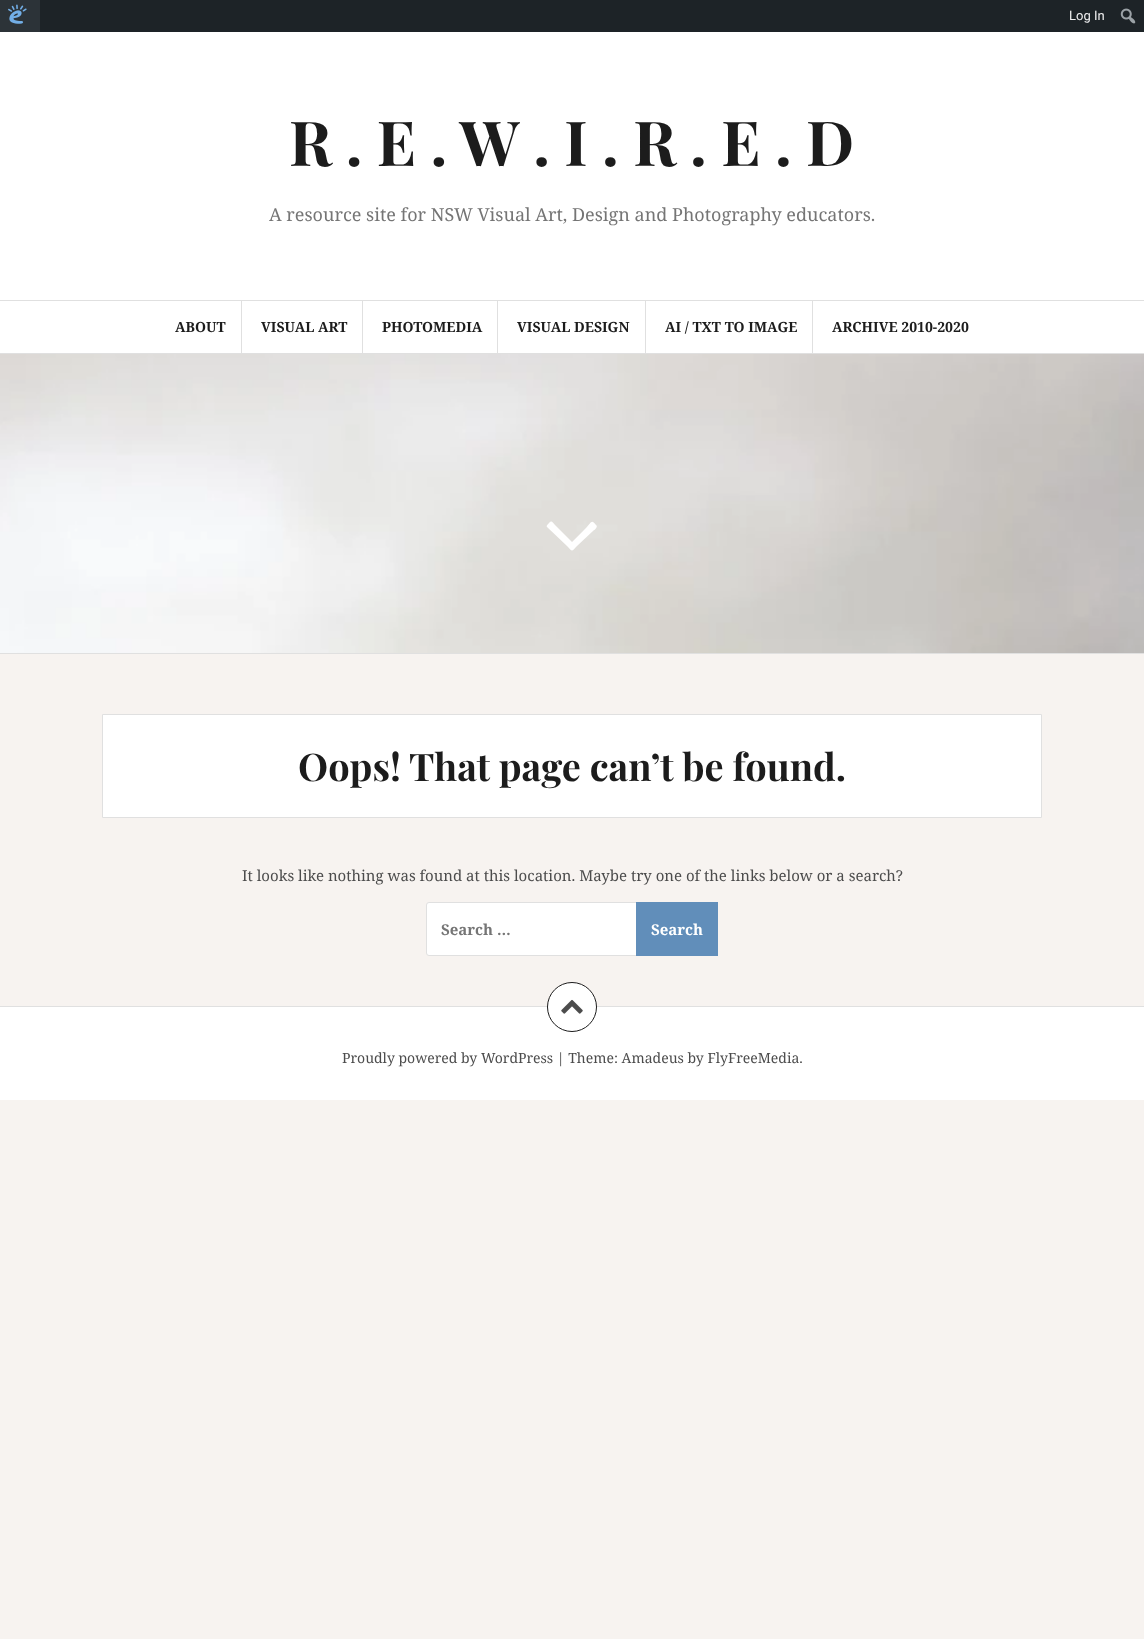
<svg xmlns="http://www.w3.org/2000/svg" width="1144" height="1639">
<style>
.a{font:13px Roboto;fill:#f0f0f1}
.b{font:bold 62px Playfair Display;fill:#1c1c1c}
.c{font:18px Noto Serif;fill:#757575}
.d{font:bold 14px Noto Serif;fill:#1c1c1c}
.e{font:bold 38px Playfair Display;fill:#1c1c1c}
.f{font:15px Noto Serif;fill:#4c4c4c}
.g{font:bold 15px Noto Serif;fill:#757575}
.h{font:bold 15px Noto Serif;fill:#fff}
.i{font:14px Noto Serif;fill:#4c4c4c}
</style>
<rect width="100%" height="100%" fill="#f7f3f0"/>
<path fill="#1d2327" d="M40 0h1104v32H40z"/>
<path fill="#2c3338" d="M0 0h40v32H0z"/>
<image href="1.png" x="8" y="4" width="19" height="20"/>
<image href="2.png" x="1120" y="8" width="16" height="16"/>
<path fill="#fff" d="M0 32h1144v321H0z"/>
<path fill="#e0e0e0" d="M0 300h1144v1H0z"/>
<path fill="#e0e0e0" d="M0 353h1144v1H0z"/>
<path fill="#e0e0e0" d="M241 301h1v52H241z"/>
<path fill="#e0e0e0" d="M362 301h1v52H362z"/>
<path fill="#e0e0e0" d="M497 301h1v52H497z"/>
<path fill="#e0e0e0" d="M645 301h1v52H645z"/>
<path fill="#e0e0e0" d="M812 301h1v52H812z"/>
<image href="3.png" x="0" y="354" width="1144" height="299"/>
<path fill="#e0e0e0" d="M0 653h1144v1H0z"/>
<path fill="#fff" d="M596 525c3 2-3 6-3 6l-16 15c-6 6-4 6-10 0l-20-19c-1-1 1-3 2-4c3-3 3-1 6 2l17 17l13-13c7-7 6-10 11-4z"/>
<path fill="#fff" stroke="#e0e0e0" d="M102.5 714.5h939v103H102.5z"/>
<rect fill="#fff" stroke="#e0e0e0" x="426.5" y="902.5" width="235" height="53" rx="2.5"/>
<path fill="#618eba" d="M636 902h82v54H636z"/>
<path fill="#fff" d="M0 1007h1144v93H0z"/>
<path fill="#e0e0e0" d="M0 1006h1144v1H0z"/>
<circle fill="#fff" stroke="#1c1c1c" cx="572" cy="1007" r="24.5"/>
<image href="4.png" x="561" y="999" width="22" height="15"/>
<text class="a" x="1069" y="20">Log In</text>
<text class="b" x="289" y="166">R . E . W . I . R . E . D</text>
<text class="c" x="269" y="221">A resource site for NSW Visual Art, Design and Photography educators.</text>
<text class="d" x="175" y="332">ABOUT</text>
<text class="d" x="261" y="332">VISUAL ART</text>
<text class="d" x="382" y="332">PHOTOMEDIA</text>
<text class="d" x="517" y="332">VISUAL DESIGN</text>
<text class="d" x="665" y="332">AI / TXT TO IMAGE</text>
<text class="d" x="832" y="332">ARCHIVE 2010-2020</text>
<text class="e" x="298" y="781">Oops! That page can’t be found.</text>
<text class="f" x="242" y="881">It looks like nothing was found at this location. Maybe try one of the links below or a search?</text>
<text class="g" x="441" y="935">Search …</text>
<text class="h" x="651" y="935">Search</text>
<text class="i" x="342" y="1063">Proudly powered by WordPress | Theme: Amadeus by FlyFreeMedia.</text>
</svg>
